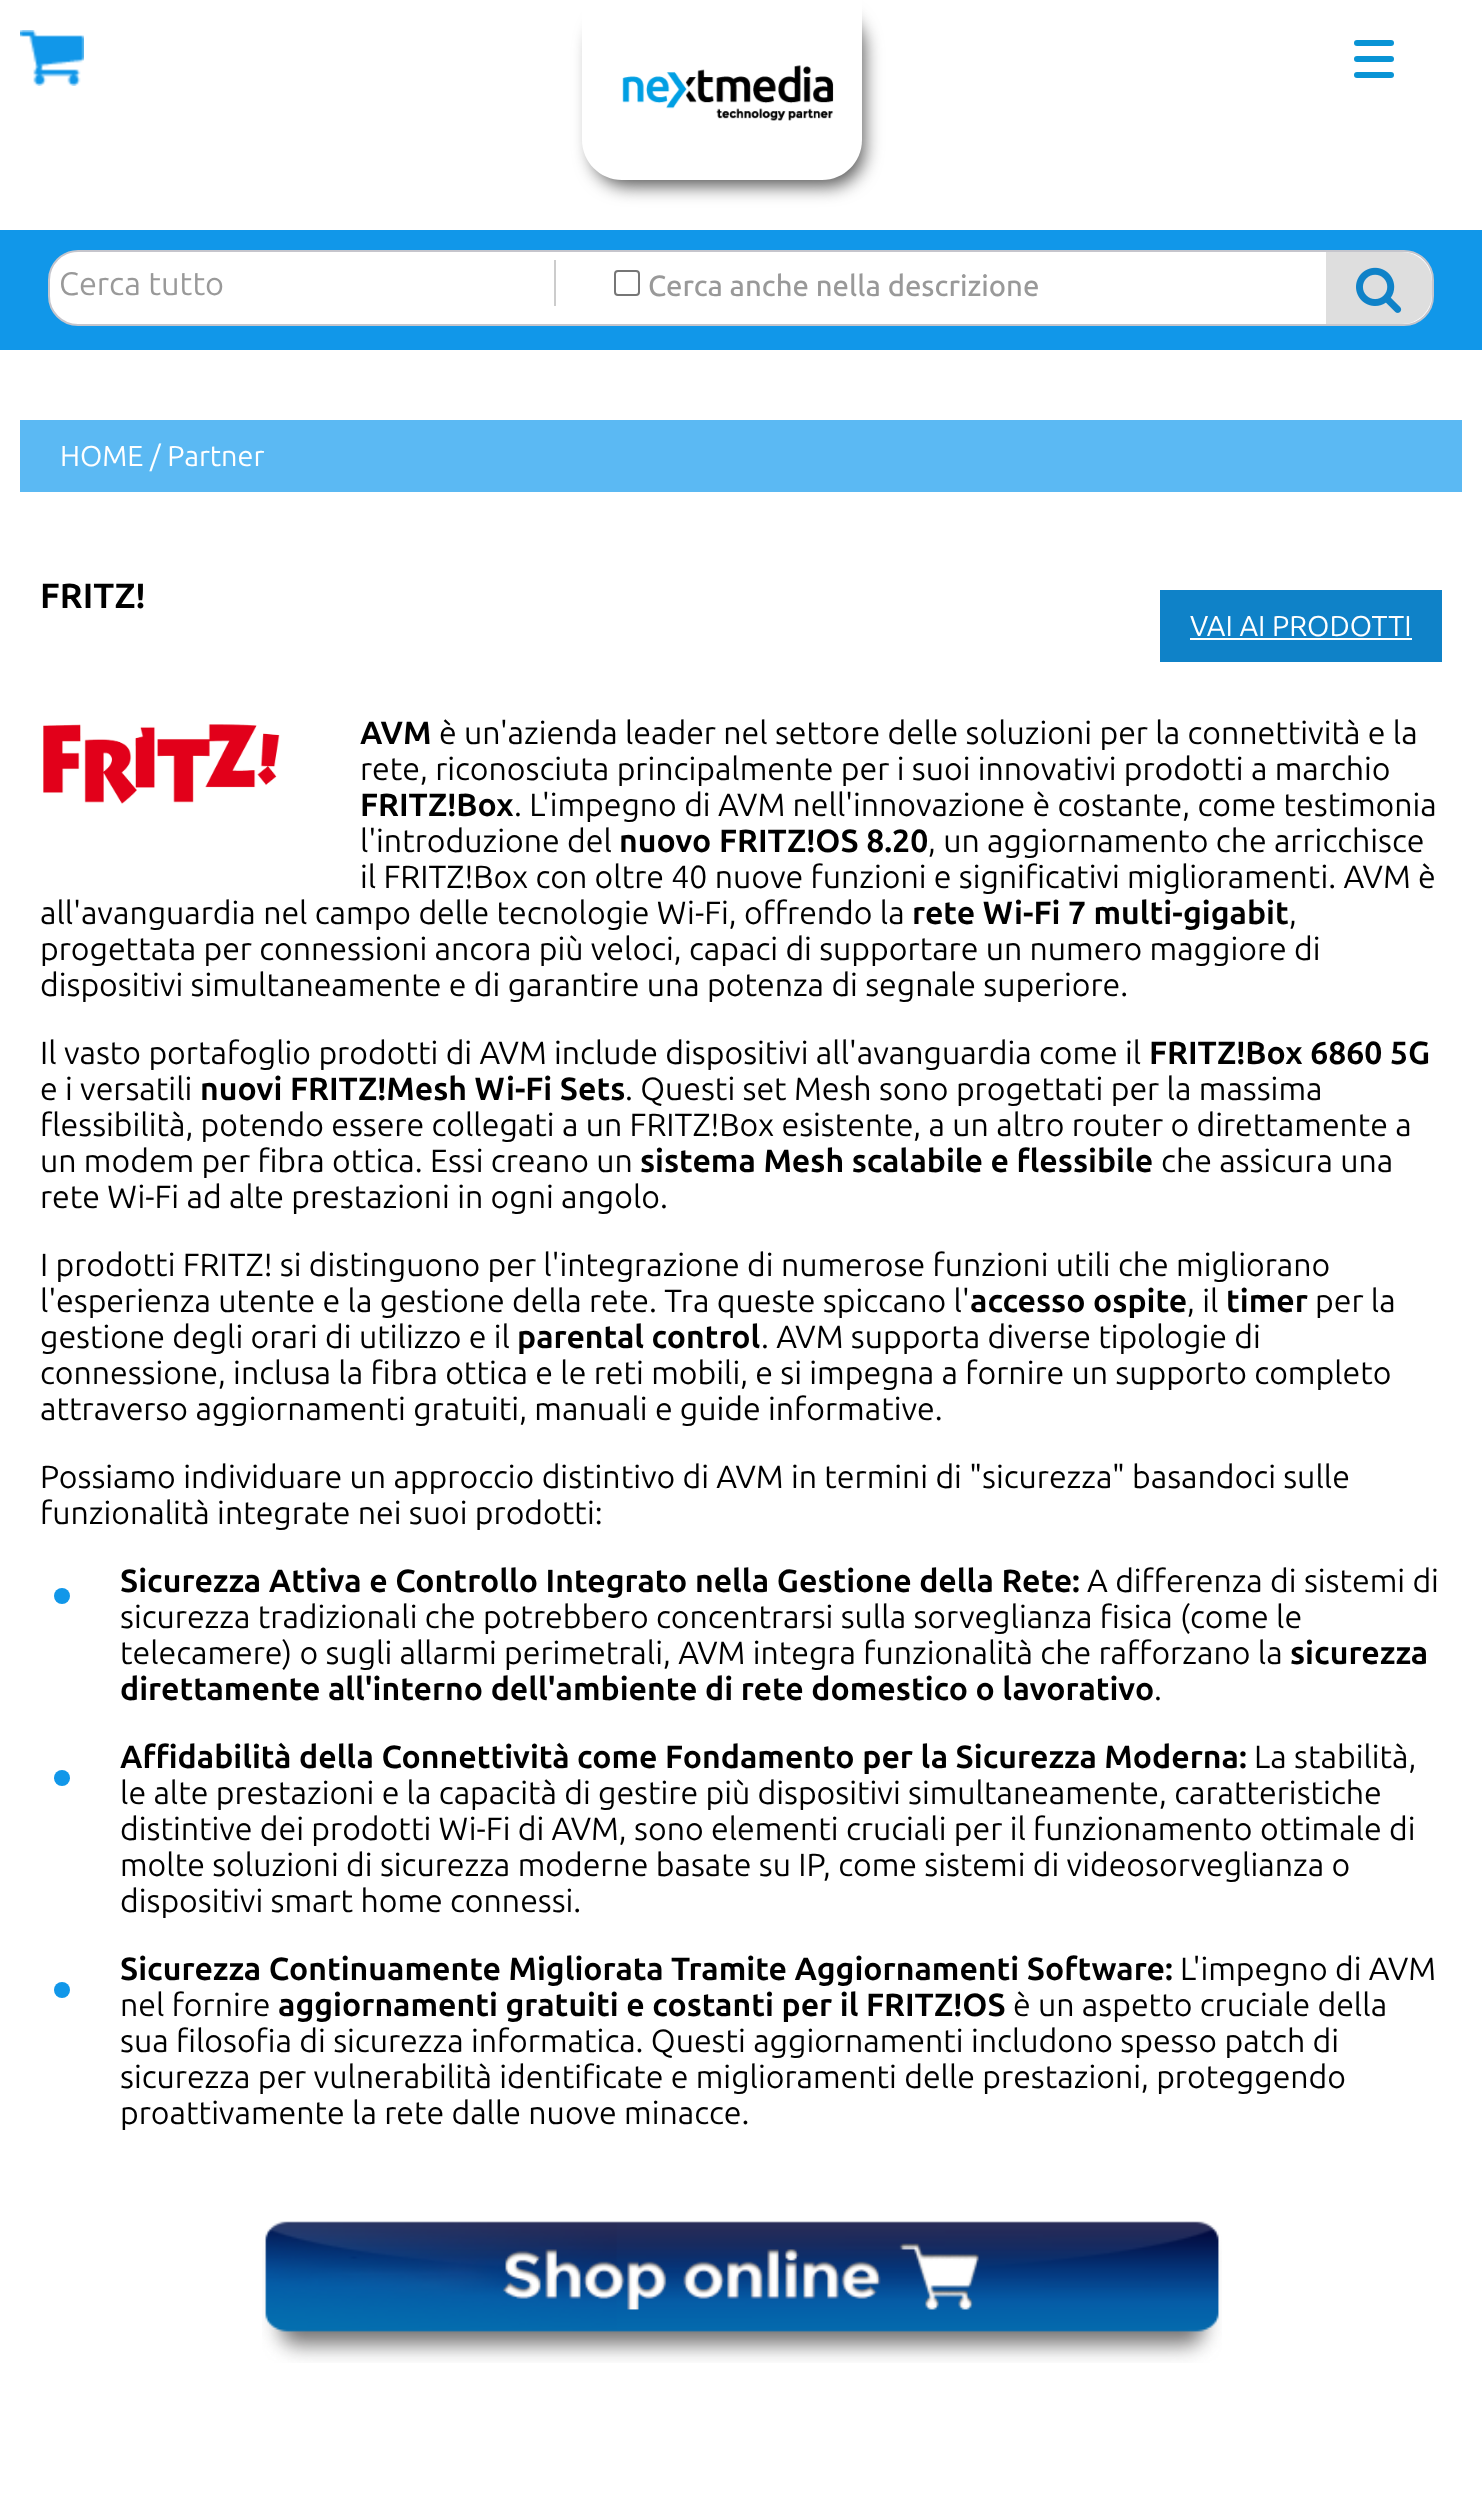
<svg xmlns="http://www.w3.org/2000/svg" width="1482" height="2517">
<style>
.a{font:32.5px Ubuntu;fill:#999}
.b{font:500 29.2px Ubuntu;fill:#999}
.c{font:28.75px Ubuntu;fill:#fff}
.d{font:bold 35px Ubuntu;fill:#000}
.e{font:bold 32px Ubuntu;fill:#000}
.f{font:32px Ubuntu;fill:#000}
</style>
<rect width="100%" height="100%" fill="#fff"/>
<image href="1.png" x="20" y="30" width="64" height="56"/>
<rect fill="#565656" filter="blur(9px)" x="592" y="12" width="272" height="174" rx="36"/>
<path fill="#fff" d="M582-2h280v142c0 22-18 40-40 40h-200c-22 0-40-18-40-40z"/>
<image href="2.png" x="622" y="65" width="212" height="56"/>
<rect fill="#0994d5" x="1354" y="40" width="40" height="6" rx="3"/>
<rect fill="#0994d5" x="1354" y="56" width="40" height="6" rx="3"/>
<rect fill="#0994d5" x="1354" y="72" width="40" height="6" rx="3"/>
<path fill="#1197e9" d="M0 230h1482v120H0z"/>
<rect fill="#fff" stroke="#c5c5cc" stroke-width="2" x="49" y="251" width="1384" height="74" rx="29"/>
<path fill="#fff" d="M58 260h1v1H58z"/>
<path fill="#ccc" d="M554 260h2v46H554z"/>
<rect fill="none" stroke="#767676" stroke-width="2" x="615" y="271" width="24" height="24" rx="3"/>
<path fill="#dedede" d="M1326 252h76c16.5 0 30 13.5 30 30v12c0 16.5-13.5 30-30 30h-76z"/>
<image href="3.png" x="1356" y="267" width="46" height="46"/>
<path fill="#5bb9f3" d="M20 420h1442v72H20z"/>
<path fill="#0f82c8" d="M1160 590h282v72H1160z"/>
<path fill="#fff" d="M1190 638h222v2H1190z"/>
<circle fill="#1197e9" cx="62" cy="1596" r="8"/>
<circle fill="#1197e9" cx="62" cy="1778" r="8"/>
<circle fill="#1197e9" cx="62" cy="1990" r="8"/>
<image href="4.png" x="262" y="2221" width="960" height="142"/>
<image href="5.png" x="43" y="724" width="237" height="80"/>
<text class="a" x="59" y="295">Cerca tutto</text>
<text class="b" x="648" y="296">Cerca anche nella descrizione</text>
<text class="c" x="60" y="466">HOME / Partner</text>
<text class="d" x="40" y="608">FRITZ!</text>
<text class="c" x="1190" y="636">VAI AI PRODOTTI</text>
<text class="e" x="360" y="744">AVM</text>
<text class="f" x="439" y="744">è un'azienda leader nel settore delle soluzioni per la connettività e la</text>
<text class="f" x="360" y="780">rete, riconosciuta principalmente per i suoi innovativi prodotti a marchio</text>
<text class="e" x="360" y="816">FRITZ!Box</text>
<text class="f" x="514" y="816">. L'impegno di AVM nell'innovazione è costante, come testimonia</text>
<text class="f" x="360" y="852">l'introduzione del</text>
<text class="e" x="619" y="852">nuovo FRITZ!OS 8.20</text>
<text class="f" x="928" y="852">, un aggiornamento che arricchisce</text>
<text class="f" x="360" y="888">il FRITZ!Box con oltre 40 nuove funzioni e significativi miglioramenti. AVM è</text>
<text class="f" x="40" y="924">all'avanguardia nel campo delle tecnologie Wi-Fi, offrendo la</text>
<text class="e" x="912" y="924">rete Wi-Fi 7 multi-gigabit</text>
<text class="f" x="1289" y="924">,</text>
<text class="f" x="40" y="960">progettata per connessioni ancora più veloci, capaci di supportare un numero maggiore di</text>
<text class="f" x="40" y="996">dispositivi simultaneamente e di garantire una potenza di segnale superiore.</text>
<text class="f" x="40" y="1064">Il vasto portafoglio prodotti di AVM include dispositivi all'avanguardia come il</text>
<text class="e" x="1149" y="1064">FRITZ!Box 6860 5G</text>
<text class="f" x="40" y="1100">e i versatili</text>
<text class="e" x="200" y="1100">nuovi FRITZ!Mesh Wi-Fi Sets</text>
<text class="f" x="625" y="1100">. Questi set Mesh sono progettati per la massima</text>
<text class="f" x="40" y="1136">flessibilità, potendo essere collegati a un FRITZ!Box esistente, a un altro router o direttamente a</text>
<text class="f" x="40" y="1172">un modem per fibra ottica. Essi creano un</text>
<text class="e" x="640" y="1172">sistema Mesh scalabile e flessibile</text>
<text class="f" x="1161" y="1172">che assicura una</text>
<text class="f" x="40" y="1208">rete Wi-Fi ad alte prestazioni in ogni angolo.</text>
<text class="f" x="40" y="1276">I prodotti FRITZ! si distinguono per l'integrazione di numerose funzioni utili che migliorano</text>
<text class="f" x="40" y="1312">l'esperienza utente e la gestione della rete. Tra queste spiccano l'</text>
<text class="e" x="970" y="1312">accesso ospite</text>
<text class="f" x="1187" y="1312">, il</text>
<text class="e" x="1226" y="1312">timer</text>
<text class="f" x="1315" y="1312">per la</text>
<text class="f" x="40" y="1348">gestione degli orari di utilizzo e il</text>
<text class="e" x="517" y="1348">parental control</text>
<text class="f" x="761" y="1348">. AVM supporta diverse tipologie di</text>
<text class="f" x="40" y="1384">connessione, inclusa la fibra ottica e le reti mobili, e si impegna a fornire un supporto completo</text>
<text class="f" x="40" y="1420">attraverso aggiornamenti gratuiti, manuali e guide informative.</text>
<text class="f" x="40" y="1488">Possiamo individuare un approccio distintivo di AVM in termini di "sicurezza" basandoci sulle</text>
<text class="f" x="40" y="1524">funzionalità integrate nei suoi prodotti:</text>
<text class="e" x="120" y="1592">Sicurezza Attiva e Controllo Integrato nella Gestione della Rete:</text>
<text class="f" x="1087" y="1592">A differenza di sistemi di</text>
<text class="f" x="120" y="1628">sicurezza tradizionali che potrebbero concentrarsi sulla sorveglianza fisica (come le</text>
<text class="f" x="120" y="1664">telecamere) o sugli allarmi perimetrali, AVM integra funzionalità che rafforzano la</text>
<text class="e" x="1290" y="1664">sicurezza</text>
<text class="e" x="120" y="1700">direttamente all'interno dell'ambiente di rete domestico o lavorativo</text>
<text class="f" x="1154" y="1700">.</text>
<text class="e" x="120" y="1768">Affidabilità della Connettività come Fondamento per la Sicurezza Moderna:</text>
<text class="f" x="1254" y="1768">La stabilità,</text>
<text class="f" x="120" y="1804">le alte prestazioni e la capacità di gestire più dispositivi simultaneamente, caratteristiche</text>
<text class="f" x="120" y="1840">distintive dei prodotti Wi-Fi di AVM, sono elementi cruciali per il funzionamento ottimale di</text>
<text class="f" x="120" y="1876">molte soluzioni di sicurezza moderne basate su IP, come sistemi di videosorveglianza o</text>
<text class="f" x="120" y="1912">dispositivi smart home connessi.</text>
<text class="e" x="120" y="1980">Sicurezza Continuamente Migliorata Tramite Aggiornamenti Software:</text>
<text class="f" x="1180" y="1980">L'impegno di AVM</text>
<text class="f" x="120" y="2016">nel fornire</text>
<text class="e" x="278" y="2016">aggiornamenti gratuiti e costanti per il FRITZ!OS</text>
<text class="f" x="1013" y="2016">è un aspetto cruciale della</text>
<text class="f" x="120" y="2052">sua filosofia di sicurezza informatica. Questi aggiornamenti includono spesso patch di</text>
<text class="f" x="120" y="2088">sicurezza per vulnerabilità identificate e miglioramenti delle prestazioni, proteggendo</text>
<text class="f" x="120" y="2124">proattivamente la rete dalle nuove minacce.</text>
</svg>
